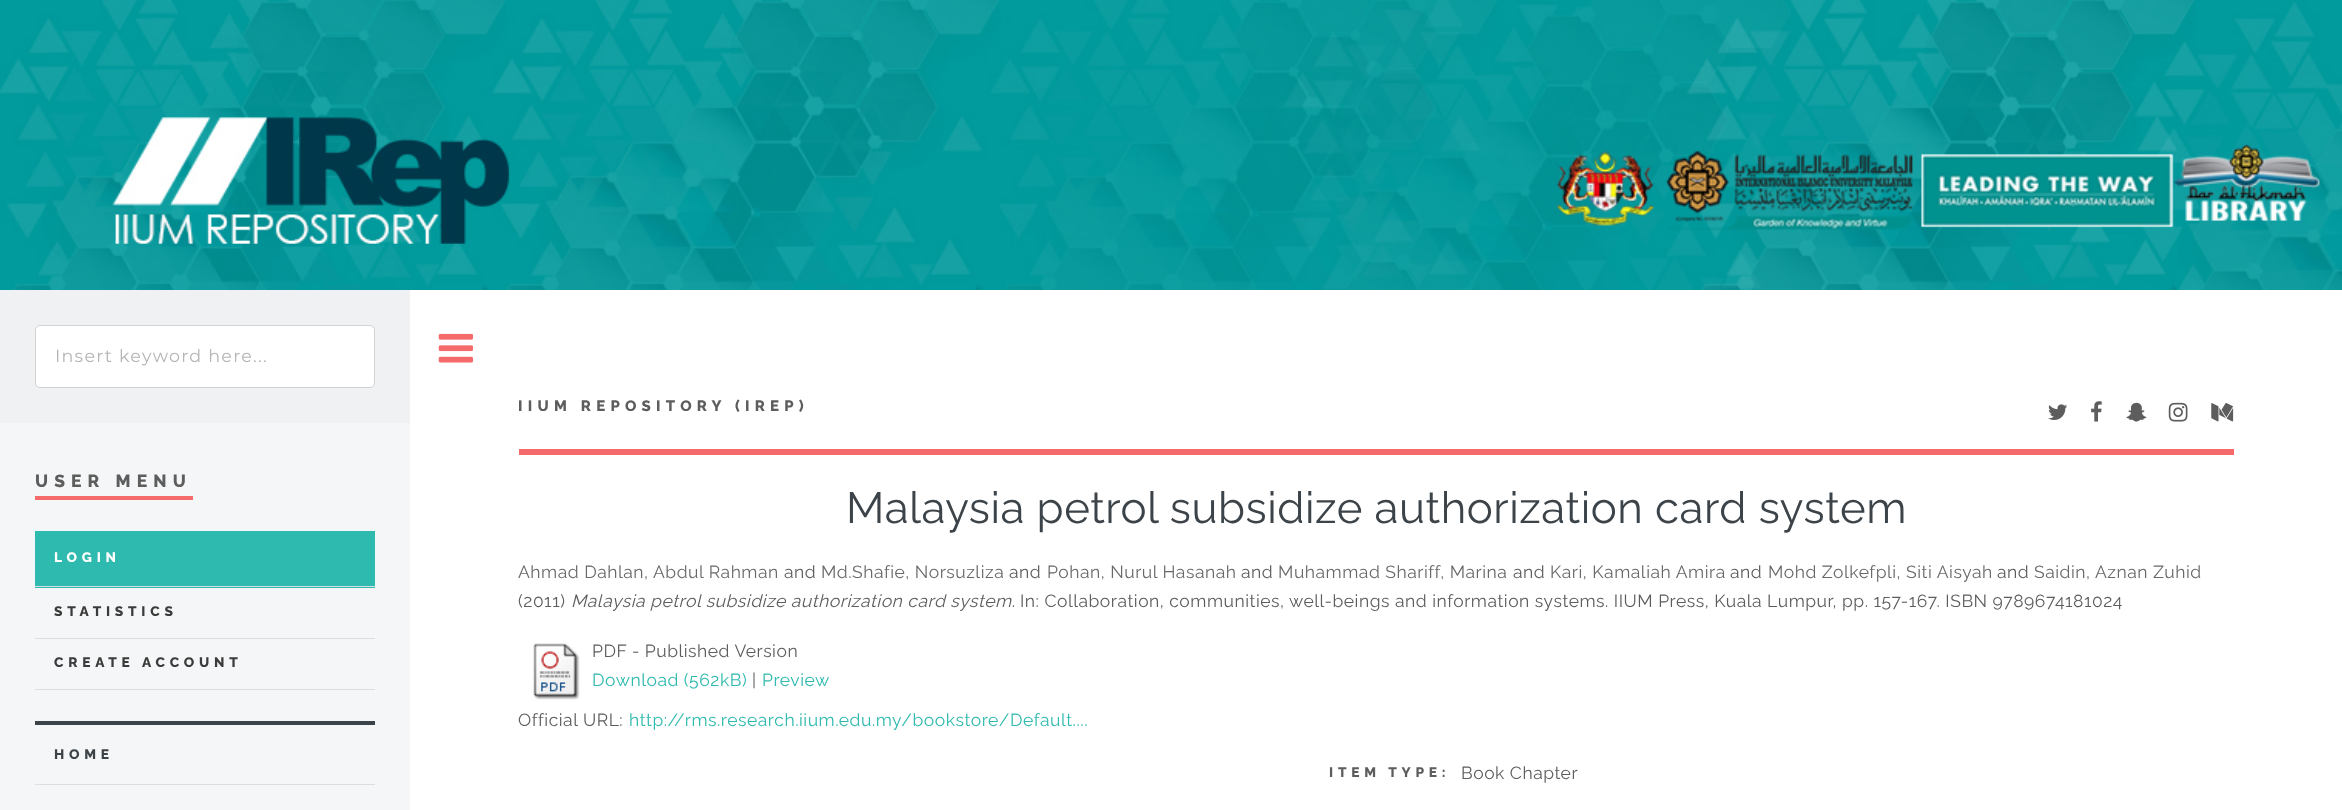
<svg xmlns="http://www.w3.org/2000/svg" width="2342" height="810">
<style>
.a{font:17.5px Montserrat;letter-spacing:1.25px;fill:#b5b5b5}
.b{font:800 17.5px Raleway;letter-spacing:6.1px;fill:#5d5d5d}
.c{font:800 13.75px Raleway;letter-spacing:4.75px;fill:#fff}
.d{font:800 13.75px Raleway;letter-spacing:4.75px;fill:#3c3b3b}
.e{font:800 13.75px Raleway;letter-spacing:4.75px;fill:#3d4449}
.f{font:800 15px Raleway;letter-spacing:5.25px;fill:#5d5d5d}
.g{font:43.75px Raleway;letter-spacing:0.53px;fill:#3d4449}
.h{font:17.5px Raleway;letter-spacing:0.53px;fill:#696969}
.i{font:17.5px Raleway;letter-spacing:0.53px;fill:#5d5d5d}
.j{font:italic 17.5px Raleway;letter-spacing:0.53px;fill:#5d5d5d}
.k{font:17.5px Raleway;letter-spacing:0.53px;fill:#2ebaae}
.l{font:800 13.75px Raleway;letter-spacing:4.75px;fill:#5d5d5d}
</style>
<rect width="100%" height="100%" fill="#fff"/>
<image href="1.png" x="0" y="0" width="2342" height="290"/>
<path fill="#f5f6f7" d="M0 423h410v387H0z"/>
<path fill="#eff1f2" d="M0 290h410v133H0z"/>
<rect fill="#fff" stroke="#d2d2d2" x="35.5" y="325.5" width="339" height="62" rx="4.5"/>
<path fill="#f56a6a" d="M35 496h158v4H35z"/>
<path fill="#2ebaae" d="M35 531h340v57H35z"/>
<path fill="#dbdfe1" d="M35 586h340v1H35z"/>
<path fill="#dbdfe1" d="M35 638h340v1H35z"/>
<path fill="#dbdfe1" d="M35 689h340v1H35z"/>
<path fill="#3d4449" d="M35 721h340v4H35z"/>
<path fill="#dbdfe1" d="M35 784h340v1H35z"/>
<image href="2.png" x="438" y="333" width="36" height="30"/>
<path fill="#f56a6a" d="M519 449h1715v6H519z"/>
<image href="3.png" x="2048" y="404" width="20" height="16"/>
<image href="4.png" x="2091" y="401" width="11" height="21"/>
<image href="5.png" x="2126" y="402" width="21" height="20"/>
<image href="6.png" x="2168" y="402" width="20" height="20"/>
<image href="7.png" x="2211" y="403" width="23" height="19"/>
<image href="8.png" x="533" y="643" width="47" height="57"/>
<text class="a" x="55" y="362">Insert keyword here...</text>
<text class="b" x="35" y="487">USER MENU</text>
<text class="c" x="54" y="562">LOGIN</text>
<text class="d" x="54" y="616">STATISTICS</text>
<text class="d" x="54" y="667">CREATE ACCOUNT</text>
<text class="e" x="54" y="759">HOME</text>
<text class="f" x="518" y="411">IIUM REPOSITORY (IREP)</text>
<text class="g" x="846" y="523">Malaysia petrol subsidize authorization card system</text>
<text class="h" x="518" y="578">Ahmad Dahlan, Abdul Rahman</text>
<text class="i" x="784" y="578">and</text>
<text class="h" x="821" y="578">Md.Shafie, Norsuzliza</text>
<text class="i" x="1009" y="578">and</text>
<text class="h" x="1047" y="578">Pohan, Nurul Hasanah</text>
<text class="i" x="1241" y="578">and</text>
<text class="h" x="1278" y="578">Muhammad Shariff, Marina</text>
<text class="i" x="1513" y="578">and</text>
<text class="h" x="1550" y="578">Kari, Kamaliah Amira</text>
<text class="i" x="1730" y="578">and</text>
<text class="h" x="1768" y="578">Mohd Zolkefpli, Siti Aisyah</text>
<text class="i" x="1997" y="578">and</text>
<text class="h" x="2034" y="578">Saidin, Aznan Zuhid</text>
<text class="i" x="518" y="607">(2011)</text>
<text class="j" x="571" y="607">Malaysia petrol subsidize authorization card system.</text>
<text class="i" x="1020" y="607">In: Collaboration, communities, well-beings and information systems. IIUM Press, Kuala Lumpur, pp. 157-167. ISBN 9789674181024</text>
<text class="i" x="592" y="657">PDF - Published Version</text>
<text class="k" x="592" y="686">Download (562kB)</text>
<text class="i" x="752" y="686">|</text>
<text class="k" x="762" y="686">Preview</text>
<text class="i" x="518" y="726">Official URL:</text>
<text class="k" x="629" y="726">http://rms.research.iium.edu.my/bookstore/Default....</text>
<text class="l" x="1329" y="777">ITEM TYPE:</text>
<text class="i" x="1461" y="779">Book Chapter</text>
</svg>
